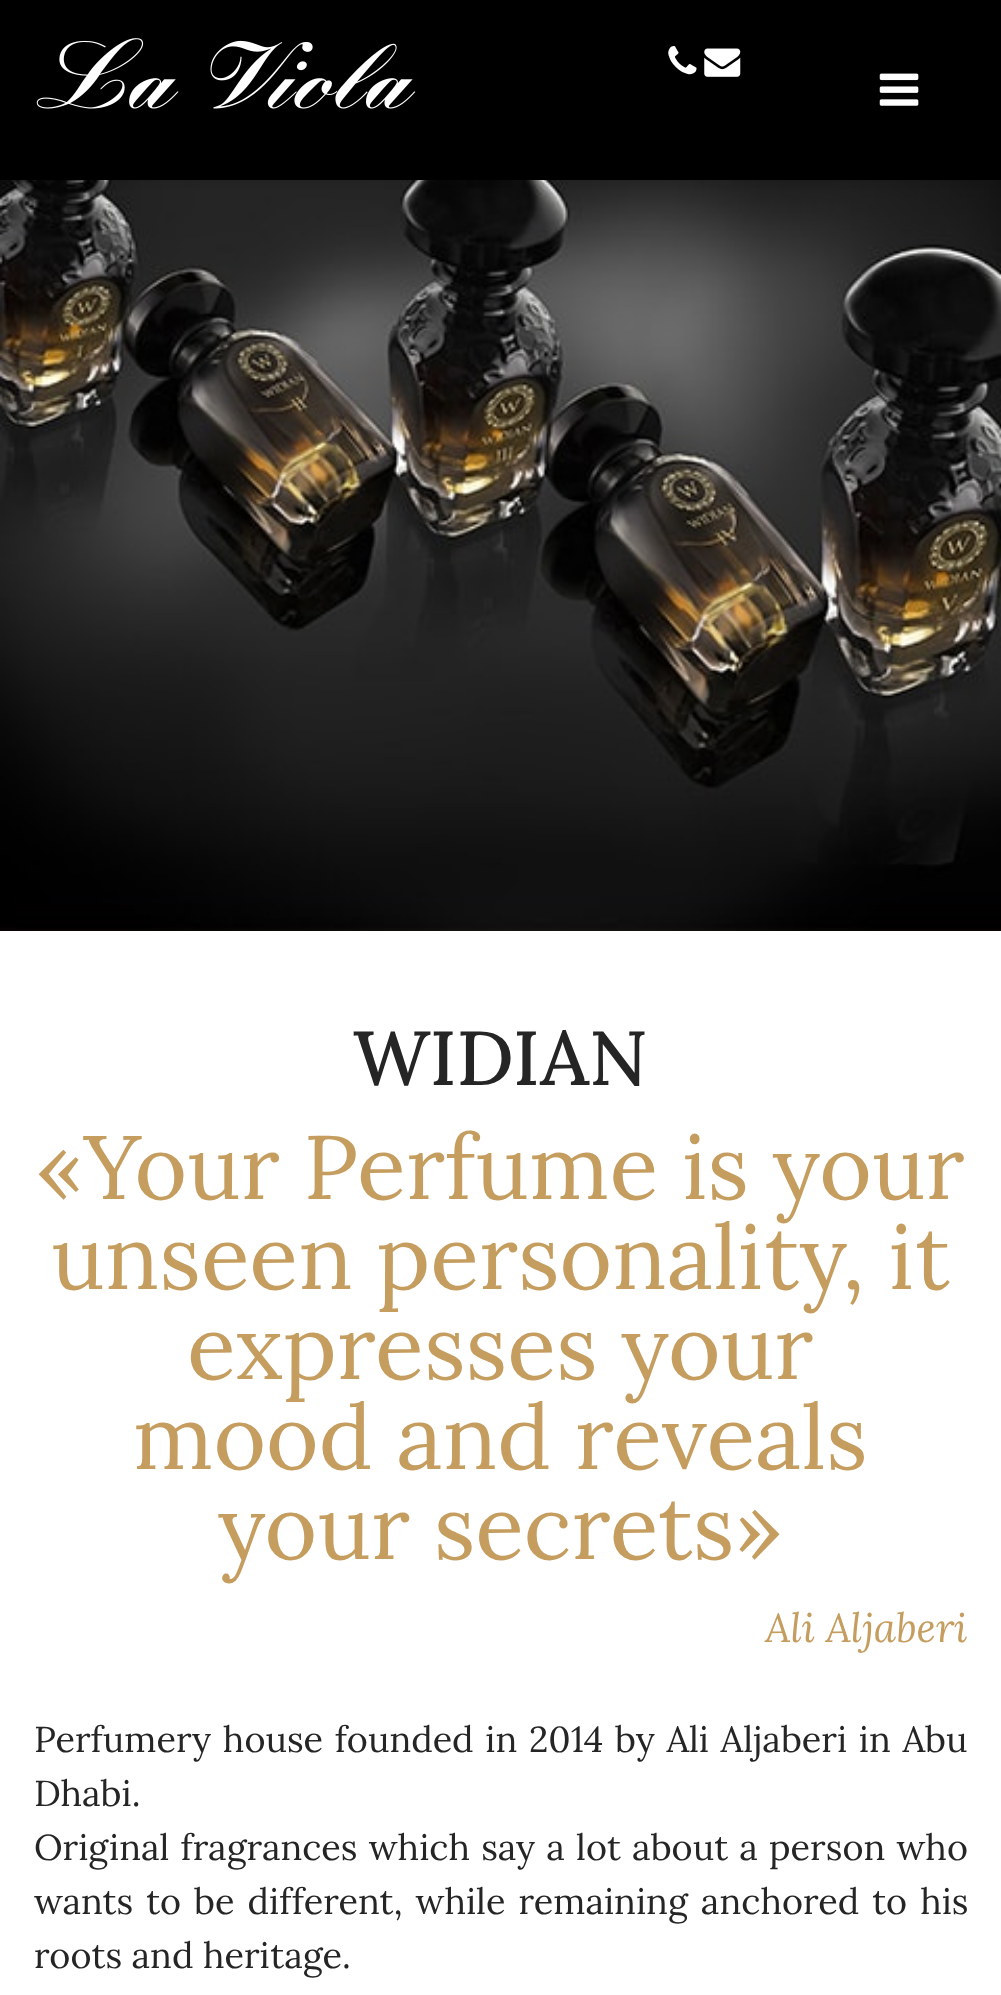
<svg xmlns="http://www.w3.org/2000/svg" width="1001" height="1995">
<style>
.a{font:500 76.5px Lora;fill:#252525}
.b{font:90px Lora;fill:#c59d5f}
.c{font:italic 40.5px Lora;fill:#c59d5f}
.d{font:36px Lora;fill:#252525}
</style>
<rect width="100%" height="100%" fill="#fff"/>
<image href="5.png" x="0" y="180" width="1001" height="751"/>
<path fill="#0000001a" filter="blur(4.5px)" d="M0 0h1001v180H0z"/>
<path fill="#000" d="M0 0h1001v180H0z"/>
<image href="1.png" x="36" y="38" width="380" height="71"/>
<image href="2.png" x="668" y="46" width="29" height="29"/>
<image href="3.png" x="704" y="48" width="37" height="29"/>
<image href="4.png" x="879" y="73" width="40" height="33"/>
<text class="a" x="353" y="1085">WIDIAN</text>
<text class="b" x="36" y="1199">«Your Perfume is your</text>
<text class="b" x="51" y="1289">unseen personality, it</text>
<text class="b" x="187" y="1379">expresses your</text>
<text class="b" x="133" y="1469">mood and reveals</text>
<text class="b" x="218" y="1559">your secrets»</text>
<text class="c" x="765" y="1642">Ali Aljaberi</text>
<text class="d" x="34" y="1752" word-spacing="2.25">Perfumery house founded in 2014 by Ali Aljaberi in Abu</text>
<text class="d" x="34" y="1806">Dhabi.</text>
<text class="d" x="34" y="1860" word-spacing="1.75">Original fragrances which say a lot about a person who</text>
<text class="d" x="34" y="1914" word-spacing="3.5">wants to be different, while remaining anchored to his</text>
<text class="d" x="34" y="1968">roots and heritage.</text>
</svg>
